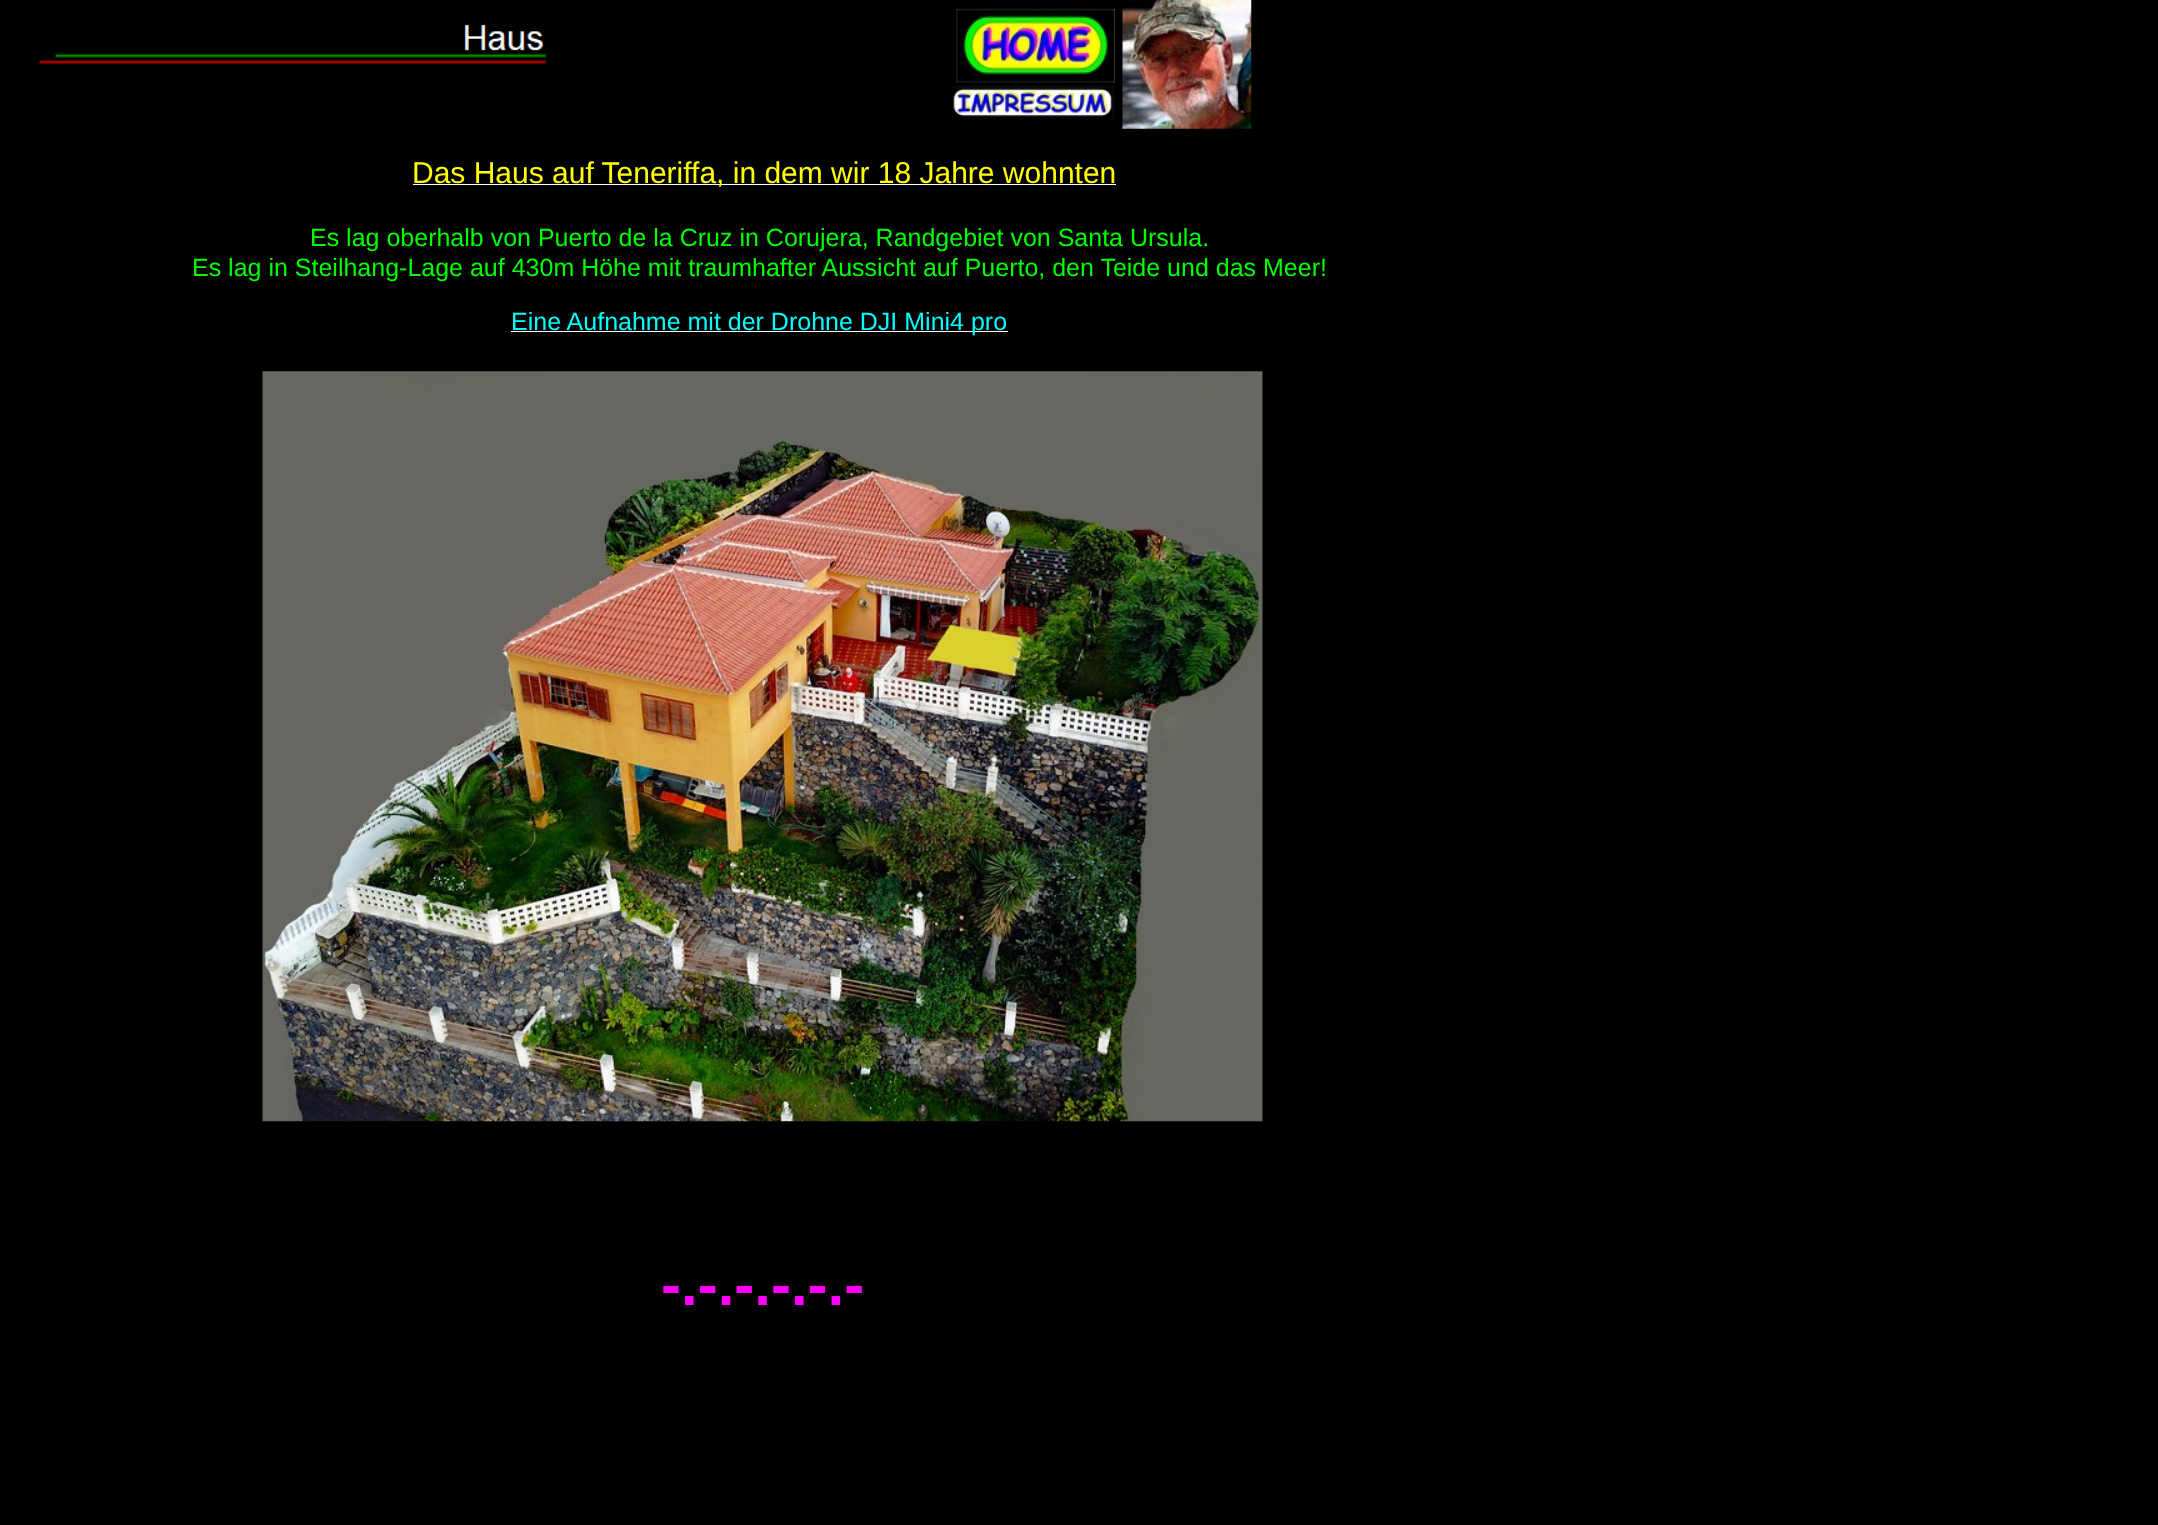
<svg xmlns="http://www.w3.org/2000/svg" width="2158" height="1525">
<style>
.a{font:30px Liberation Sans;fill:#ff0}
.b{font:25px Liberation Sans;fill:#0f0}
.c{font:25px Liberation Sans;fill:#0ff}
.d{font:bold 60px Liberation Sans;fill:#f0f}
</style>
<rect width="100%" height="100%" fill="#000"/>
<image href="1.png" x="38" y="24" width="509" height="40"/>
<image href="2.png" x="1122" y="0" width="130" height="129"/>
<image href="3.png" x="956" y="8" width="159" height="75"/>
<image href="4.png" x="951" y="86" width="163" height="33"/>
<path fill="#fff" d="M413 184h703v1H413z"/>
<path fill="#fff" d="M511 331h497v1H511z"/>
<image href="5.png" x="262" y="371" width="1001" height="751"/>
<text class="a" x="412" y="183">Das Haus auf Teneriffa, in dem wir 18 Jahre wohnten</text>
<text class="b" x="310" y="246">Es lag oberhalb von Puerto de la Cruz in Corujera, Randgebiet von Santa Ursula.</text>
<text class="b" x="192" y="276">Es lag in Steilhang-Lage auf 430m Höhe mit traumhafter Aussicht auf Puerto, den Teide und das Meer!</text>
<text class="c" x="511" y="330">Eine Aufnahme mit der Drohne DJI Mini4 pro</text>
<text class="d" x="661" y="1305">-.-.-.-.-.-</text>
</svg>
